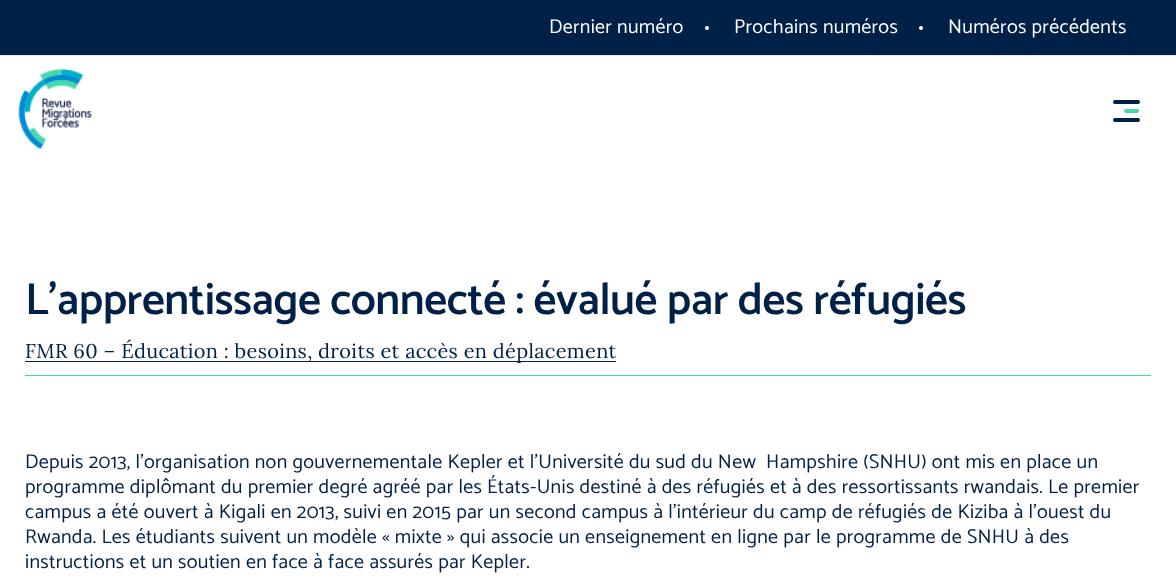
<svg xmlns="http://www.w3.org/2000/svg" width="1176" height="586">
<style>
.a{font:20px Catamaran;letter-spacing:0.3px;fill:#fff}
.b{font:600 45px Catamaran;letter-spacing:-0.45px;fill:#002147}
.c{font:20px Lora;letter-spacing:0.3px;fill:#002147}
.d{font:20px Catamaran;letter-spacing:0.3px;fill:#002147}
</style>
<rect width="100%" height="100%" fill="#fff"/>
<path fill="#002147" d="M0 0h1176v55H0z"/>
<path fill="#eee" d="M0 55h1176v1H0z"/>
<circle fill="#fff" cx="707" cy="28" r="2"/>
<circle fill="#fff" cx="921" cy="28" r="2"/>
<image href="1.png" x="18" y="68" width="74" height="81"/>
<rect fill="#47d7ac" x="1124" y="109" width="15" height="4" rx="2"/>
<rect fill="#002147" x="1113" y="100" width="27" height="4" rx="2"/>
<rect fill="#002147" x="1113" y="118" width="27" height="4" rx="2"/>
<path fill="#47d7ac" d="M25 375h1126v1H25z"/>
<path fill="#002147" d="M25 361h591v1H25z"/>
<text class="a" x="549" y="33">Dernier numéro</text>
<text class="a" x="734" y="33">Prochains numéros</text>
<text class="a" x="948" y="33">Numéros précédents</text>
<text class="b" x="25" y="314">L’apprentissage connecté : évalué par des réfugiés</text>
<text class="c" x="25" y="358">FMR 60 – Éducation : besoins, droits et accès en déplacement</text>
<text class="d" xml:space="preserve" x="25" y="468">Depuis 2013, l’organisation non gouvernementale Kepler et l’Université du sud du New  Hampshire (SNHU) ont mis en place un</text>
<text class="d" x="25" y="493">programme diplômant du premier degré agréé par les États-Unis destiné à des réfugiés et à des ressortissants rwandais. Le premier</text>
<text class="d" x="25" y="518">campus a été ouvert à Kigali en 2013, suivi en 2015 par un second campus à l’intérieur du camp de réfugiés de Kiziba à l’ouest du</text>
<text class="d" x="25" y="543">Rwanda. Les étudiants suivent un modèle « mixte » qui associe un enseignement en ligne par le programme de SNHU à des</text>
<text class="d" x="25" y="568">instructions et un soutien en face à face assurés par Kepler.</text>
</svg>
